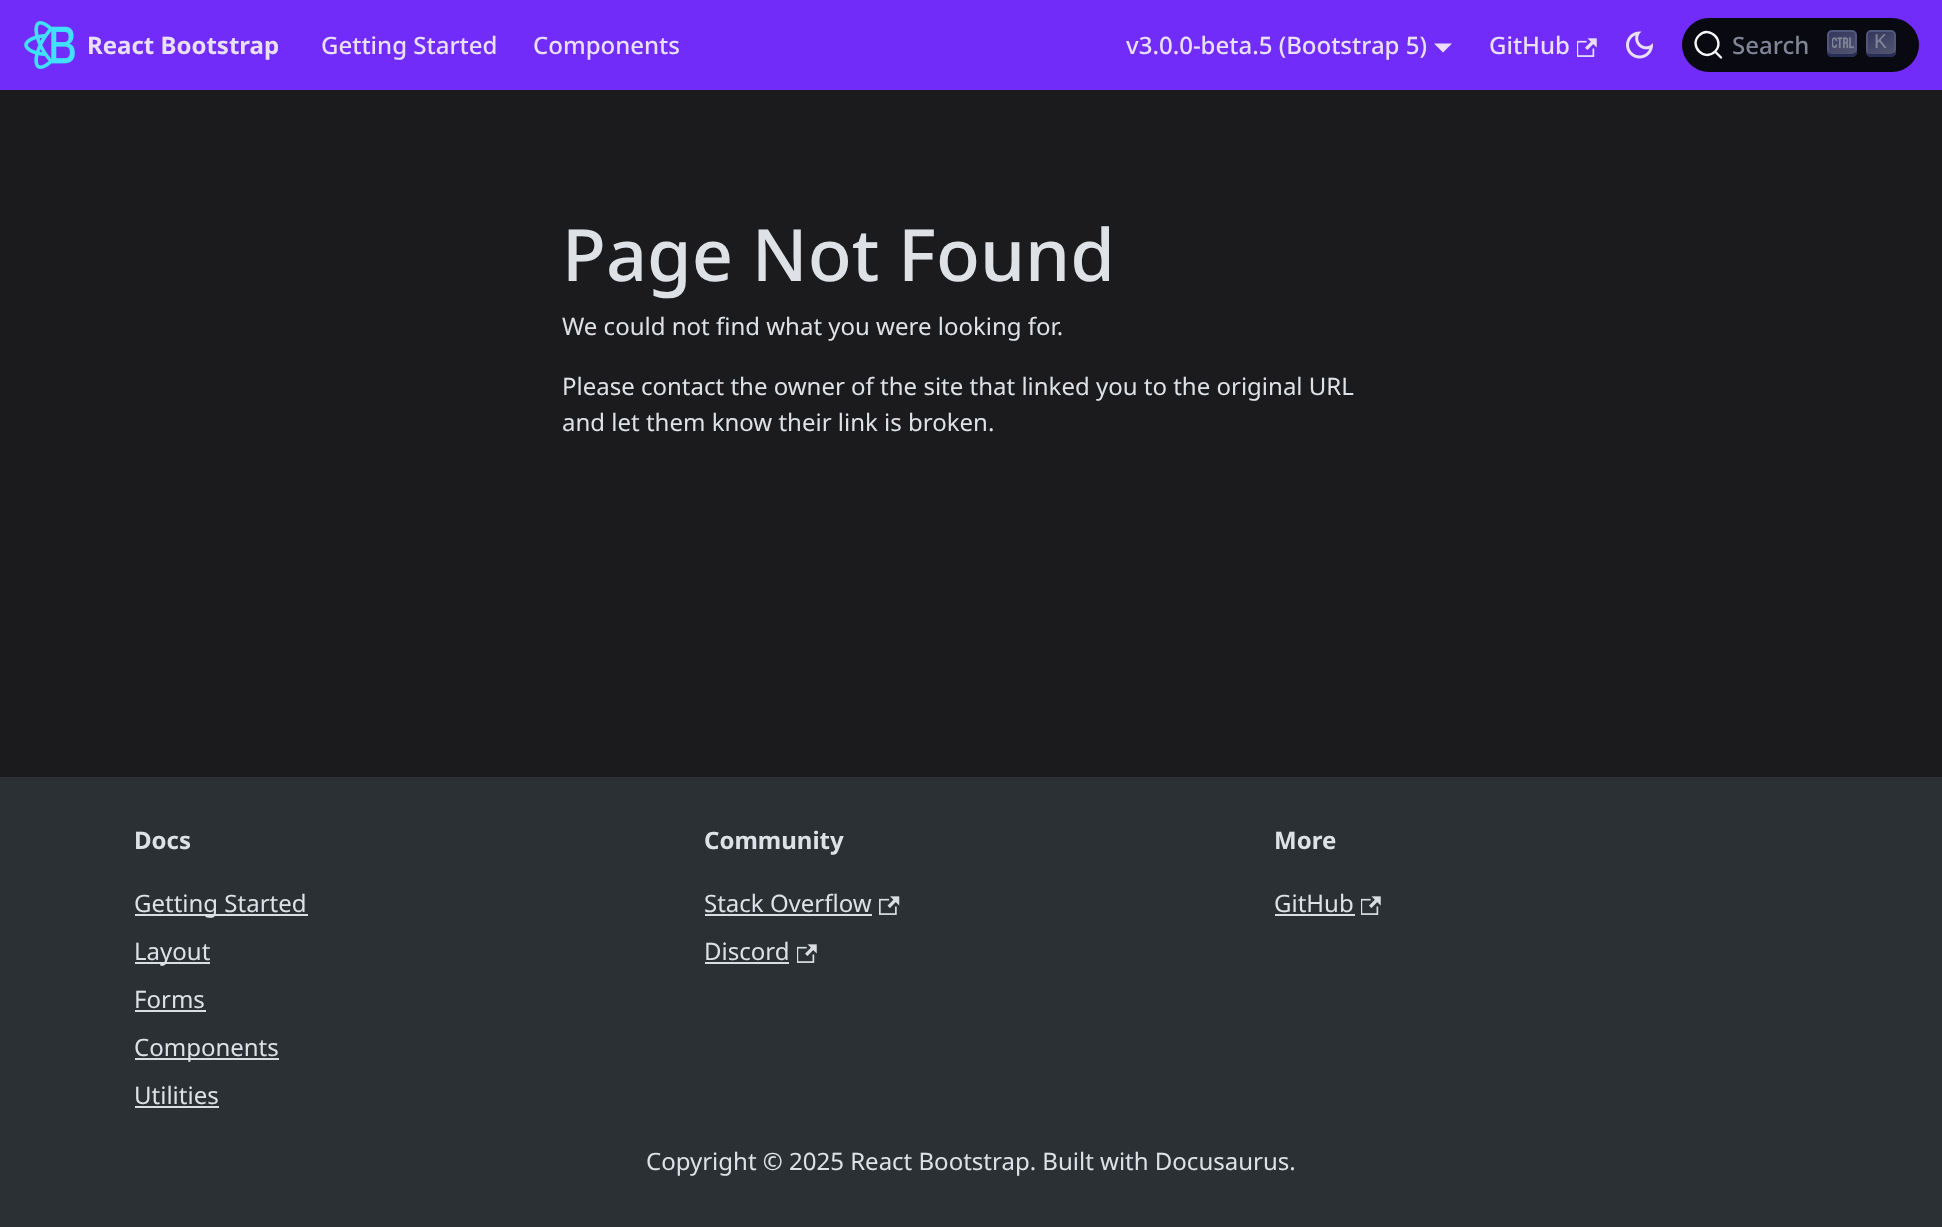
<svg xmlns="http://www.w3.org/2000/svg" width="1942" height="1227">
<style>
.a{font:bold 24px Noto Sans;fill:#eadffe}
.b{font:500 24px Noto Sans;fill:#eadffe}
.c{font:500 24px Noto Sans;fill:#7f8497}
.d{font:21px Liberation Mono;fill:#7f8497}
.e{font:500 72px Noto Sans;fill:#dee2e6}
.f{font:24px Noto Sans;fill:#dee2e6}
.g{font:bold 24px Noto Sans;fill:#dee2e6}
</style>
<defs>
<linearGradient id="g1" gradientUnits="userSpaceOnUse" x1="1850" y1="60" x2="1834" y2="27"><stop offset="0" stop-color="#565872"/><stop offset="1" stop-color="#31355b"/></linearGradient>
<linearGradient id="g2" gradientUnits="userSpaceOnUse" x1="1889" y1="60" x2="1873" y2="27"><stop offset="0" stop-color="#565872"/><stop offset="1" stop-color="#31355b"/></linearGradient>
</defs>
<rect width="100%" height="100%" fill="#1b1b1d"/>
<path fill="#712cf9" d="M0 0h1942v90H0z"/>
<image href="1.png" x="24" y="21" width="51" height="48"/>
<path fill="#eadffe" d="M1434 43.5h18l-9 9z"/>
<image href="2.png" x="1577" y="38" width="20" height="19"/>
<image href="3.png" x="1626" y="31" width="27" height="28"/>
<rect fill="#090a11" x="1682" y="18" width="237" height="54" rx="27"/>
<path fill="none" stroke="#f5f6f7" stroke-width="2.4" stroke-linecap="round" stroke-linejoin="round" d="M1715 51.5l6 6l-6-6c-10.5 10.5-26.5-5.5-16-16c10.5-10.5 26.5 5.5 16 16z"/>
<rect fill="url(#g1)" stroke="#51577d" stroke-width="2" x="1828" y="31" width="28" height="25" rx="4"/>
<path fill="#282d55" d="M1857 49.5c-.5 3-2.5 4.5-8 4.5h-17c-3 0-4.5-2-5-4.5c0 6.5 1.5 7.5 8.5 7.5h13c6.5 0 8.5-.5 8.5-7.5z"/>
<image href="4.png" x="1832" y="37" width="22" height="12"/>
<rect fill="url(#g2)" stroke="#51577d" stroke-width="2" x="1867" y="31" width="28" height="25" rx="4"/>
<path fill="#282d55" d="M1896 49.5c-.5 3-2.5 4.5-8 4.5h-18c-2.5 0-3.5-1.5-4-4c0 6.5 2.5 7 8.5 7h13c6.5 0 8.5-.5 8.5-7.5z"/>
<path fill="#2b3035" d="M0 777h1942v450H0z"/>
<path fill="#dadde1" d="M135 914h173v2H135z"/>
<path fill="#dadde1" d="M135 962h75v2H135z"/>
<path fill="#dadde1" d="M135 1010h71v2H135z"/>
<path fill="#dadde1" d="M135 1058h144v2H135z"/>
<path fill="#dadde1" d="M135 1106h84v2H135z"/>
<path fill="#dadde1" d="M705 914h167v2H705z"/>
<image href="5.png" x="879" y="896" width="21" height="19"/>
<path fill="#dadde1" d="M705 962h84v2H705z"/>
<image href="6.png" x="797" y="944" width="20" height="19"/>
<path fill="#dadde1" d="M1275 914h80v2H1275z"/>
<image href="6.png" x="1361" y="896" width="20" height="19"/>
<text class="a" x="87" y="54">React Bootstrap</text>
<text class="b" x="321" y="54">Getting Started</text>
<text class="b" x="533" y="54">Components</text>
<text class="b" x="1126" y="54">v3.0.0-beta.5 (Bootstrap 5)</text>
<text class="b" x="1489" y="54">GitHub</text>
<text class="c" x="1732" y="54">Search</text>
<text class="d" x="1874" y="48">K</text>
<text class="e" x="562" y="281">Page Not Found</text>
<text class="f" x="562" y="335">We could not find what you were looking for.</text>
<text class="f" x="562" y="395">Please contact the owner of the site that linked you to the original URL</text>
<text class="f" x="562" y="431">and let them know their link is broken.</text>
<text class="g" x="134" y="849">Docs</text>
<text class="f" x="134" y="912">Getting Started</text>
<text class="f" x="134" y="960">Layout</text>
<text class="f" x="134" y="1008">Forms</text>
<text class="f" x="134" y="1056">Components</text>
<text class="f" x="134" y="1104">Utilities</text>
<text class="g" x="704" y="849">Community</text>
<text class="f" x="704" y="912">Stack Overflow</text>
<text class="f" x="704" y="960">Discord</text>
<text class="g" x="1274" y="849">More</text>
<text class="f" x="1274" y="912">GitHub</text>
<text class="f" x="646" y="1170">Copyright © 2025 React Bootstrap. Built with Docusaurus.</text>
</svg>
